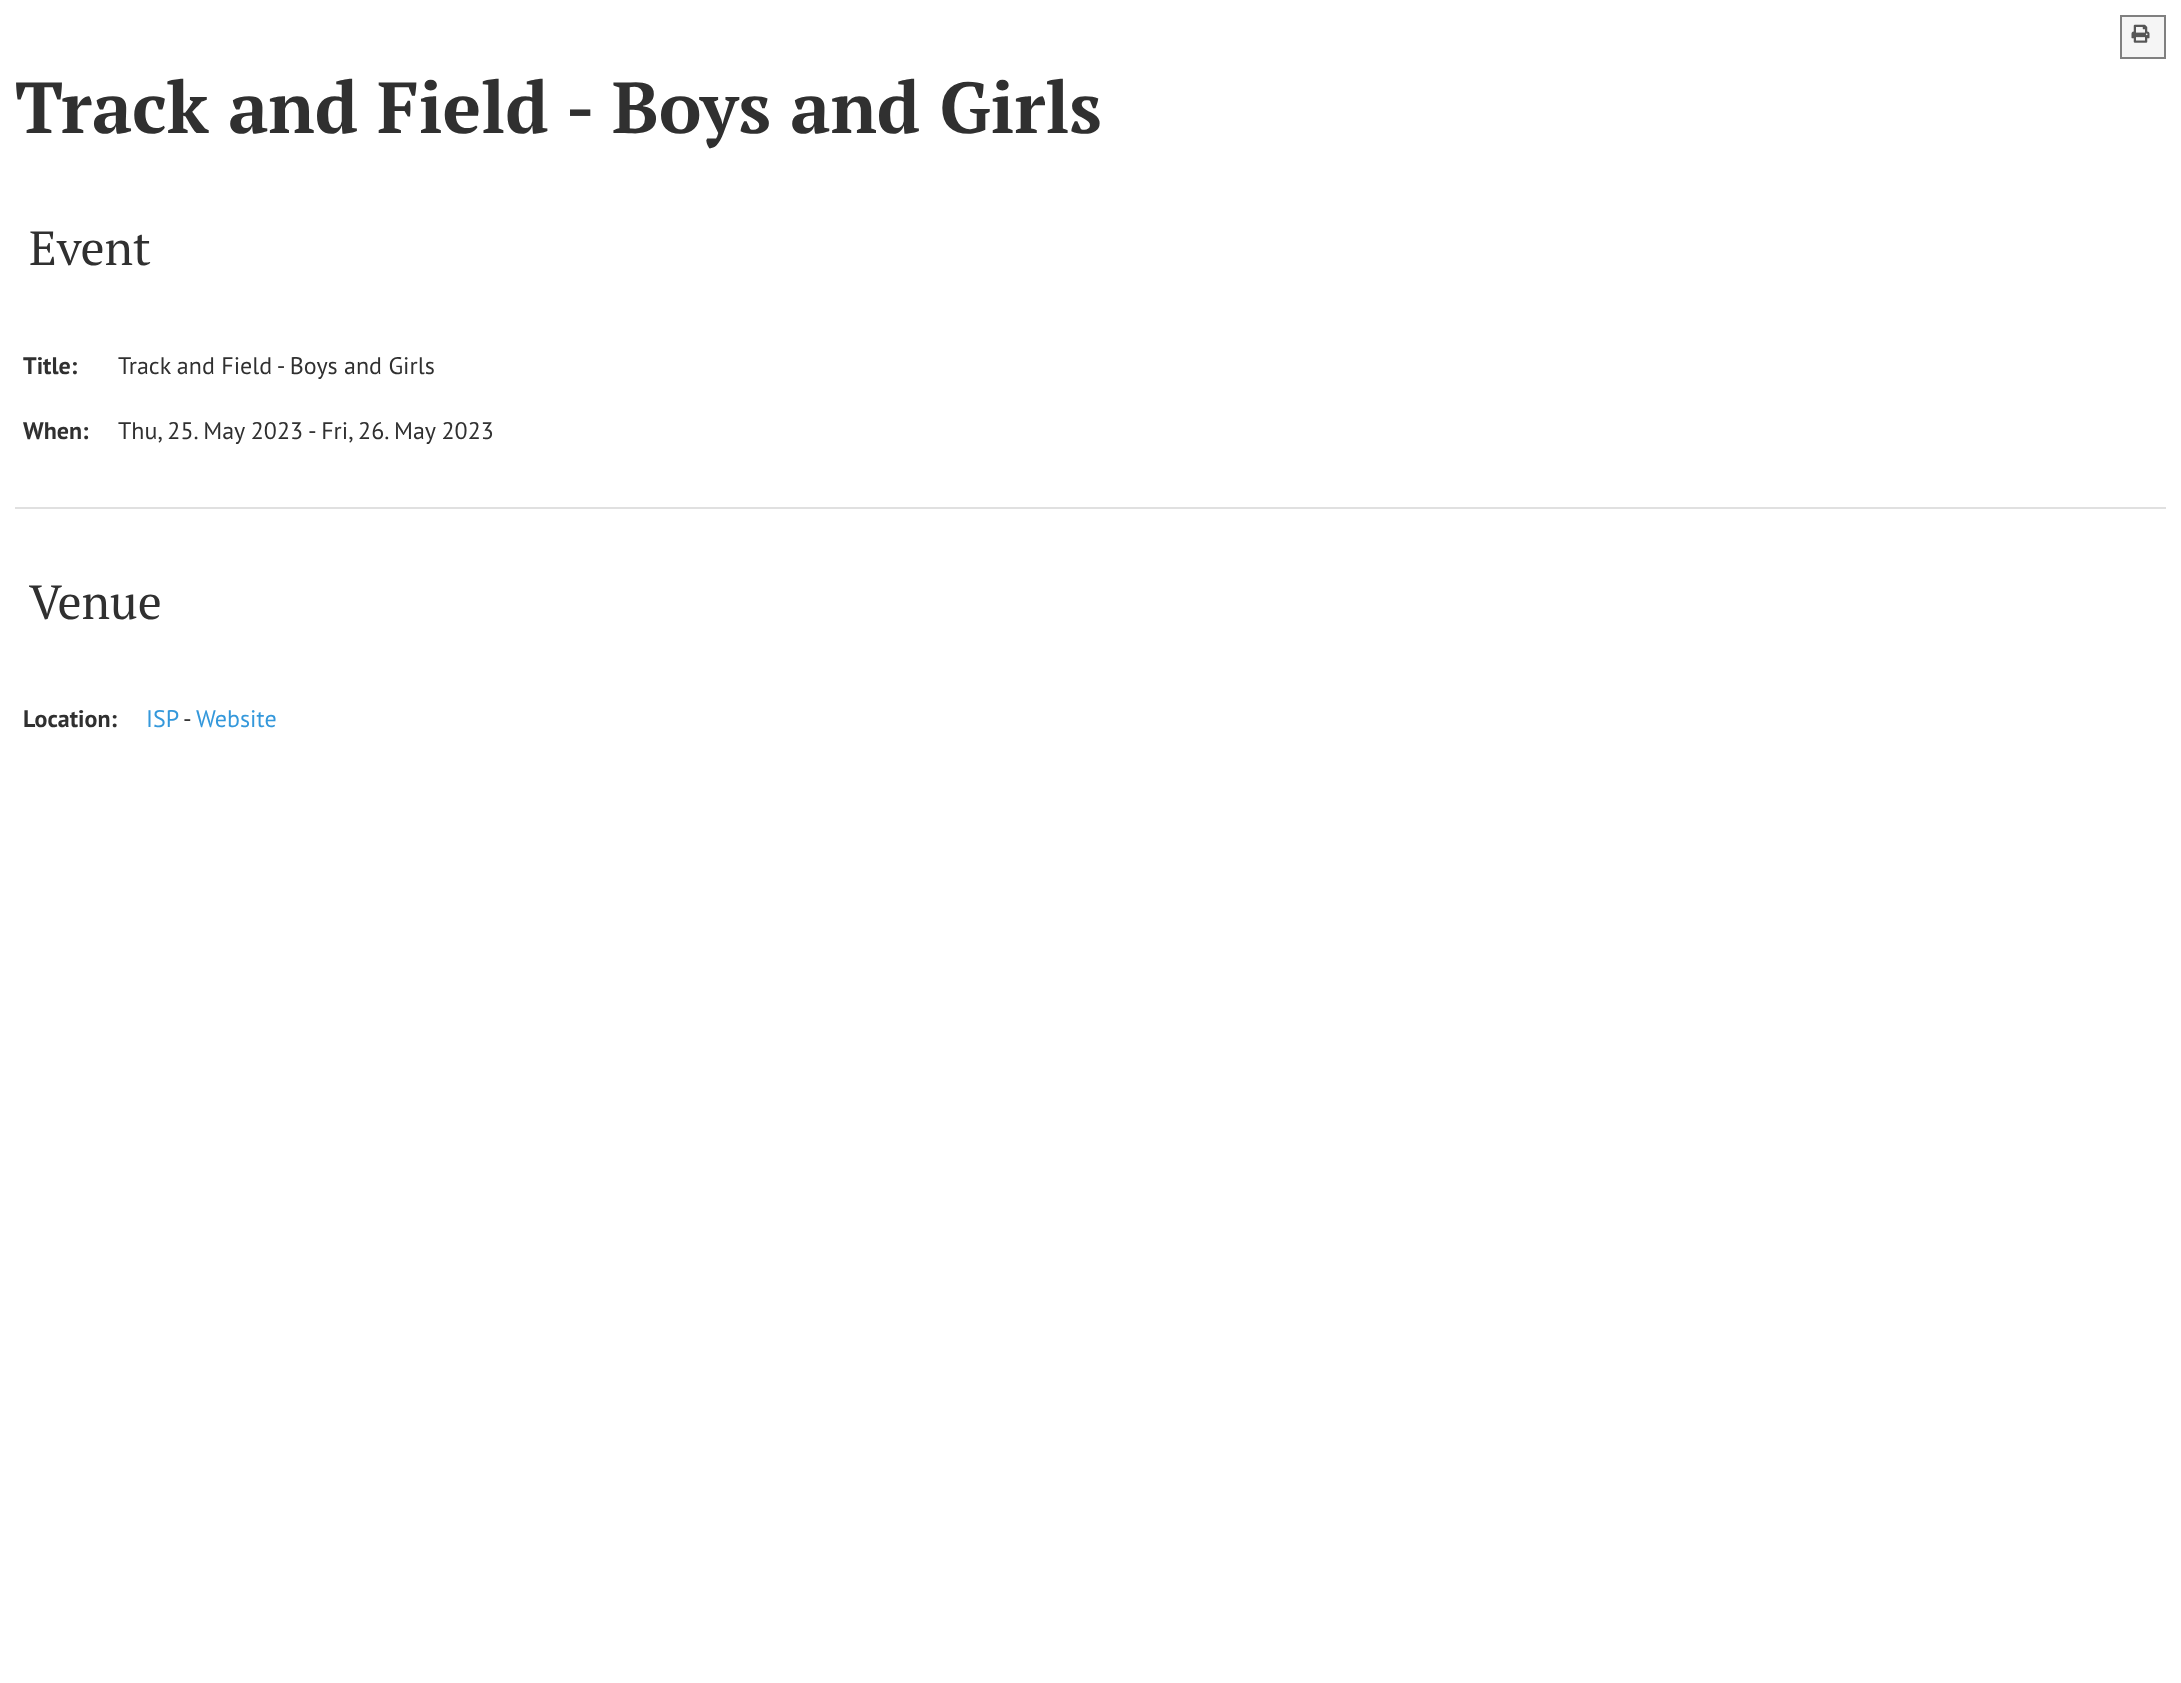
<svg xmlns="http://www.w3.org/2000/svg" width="2181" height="1683">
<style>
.a{font:bold 72px PT Serif;fill:#303030}
.b{font:48px PT Serif;fill:#303030}
.c{font:bold 24px PT Sans;fill:#303030}
.d{font:24px PT Sans;fill:#303030}
.e{font:24px PT Sans;fill:#3498db}
</style>
<rect width="100%" height="100%" fill="#fff"/>
<path fill="#f5f5f5" stroke="#808080" stroke-width="2" d="M2121 16h44v42H2121z"/>
<image href="1.png" x="2131" y="24" width="19" height="19"/>
<path fill="#e0e0e0" d="M15 507h2151v2H15z"/>
<text class="a" x="15" y="133">Track and Field - Boys and Girls</text>
<text class="b" x="29" y="265">Event</text>
<text class="c" x="23" y="374">Title:</text>
<text class="d" x="118" y="374">Track and Field - Boys and Girls</text>
<text class="c" x="23" y="439">When:</text>
<text class="d" x="118" y="439">Thu, 25. May 2023</text>
<text class="d" x="308" y="439">- Fri, 26. May 2023</text>
<text class="b" x="29" y="619">Venue</text>
<text class="c" x="23" y="727">Location:</text>
<text class="e" x="146" y="727">ISP</text>
<text class="d" x="183" y="727">-</text>
<text class="e" x="196" y="727">Website</text>
</svg>
